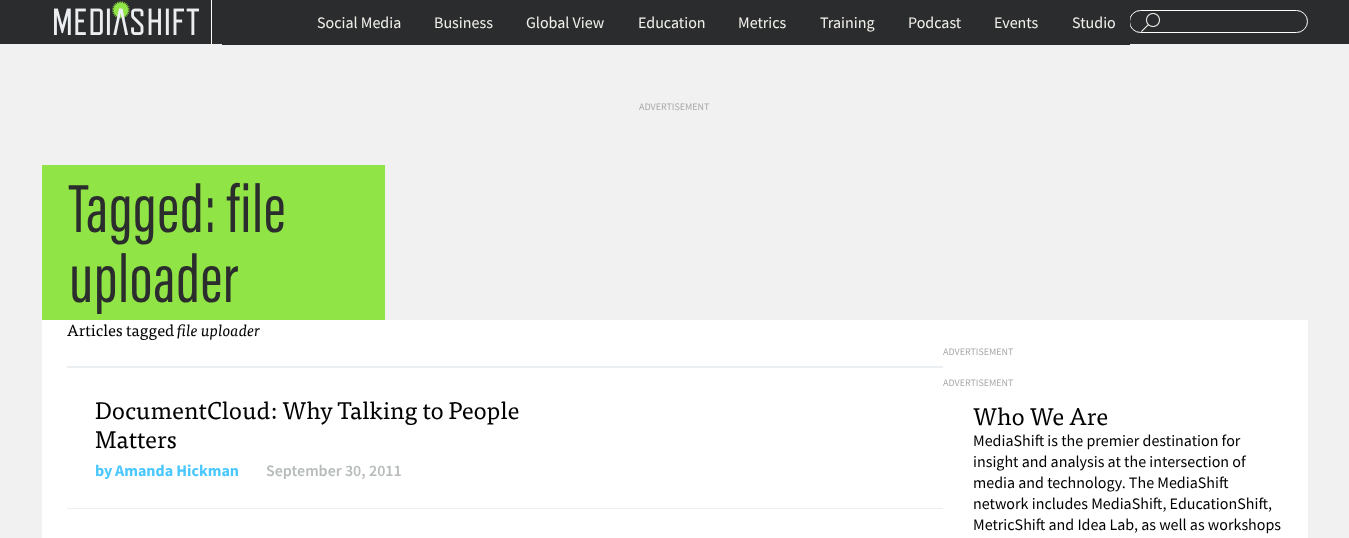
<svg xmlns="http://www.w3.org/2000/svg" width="1349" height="538">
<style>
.a{font:16px Source Sans Pro;fill:#f0efea}
.b{font:10px Source Sans Pro;fill:#a9a9a9}
.c{font:70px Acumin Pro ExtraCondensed;letter-spacing:0.6px;fill:#2b2c2d}
.d{font:16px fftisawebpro;fill:#000}
.e{font:italic 16px fftisawebpro;fill:#000}
.f{font:24px fftisawebpro;fill:#000}
.g{font:bold 16px Source Sans Pro;fill:#4ac8ff}
.h{font:600 16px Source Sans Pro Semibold;fill:#b7bbbc}
.i{font:16px Source Sans Pro;fill:#000}
</style>
<rect width="100%" height="100%" fill="#f1f1f1"/>
<path fill="#2b2c2d" d="M0 0h1349v44H0z"/>
<path fill="#fff" d="M211 0h1v44H211z"/>
<image href="1.png" x="54" y="1" width="145" height="34"/>
<image href="2.png" x="1141" y="13" width="19" height="19"/>
<rect fill="none" stroke="#fff" x="1129.5" y="10.5" width="178" height="22" rx="11"/>
<path fill="#2b2c2d" d="M222 17h908v28H222z"/>
<path fill="#90e445" d="M42 165h343v155H42z"/>
<path fill="#fff" d="M42 320h1266v218H42z"/>
<path fill="#eceff1" d="M67 366h876v2H67z"/>
<path fill="#eceff1" d="M67 508h876v1H67z"/>
<text class="a" x="317" y="28">Social Media</text>
<text class="a" x="434" y="28">Business</text>
<text class="a" x="526" y="28">Global View</text>
<text class="a" x="638" y="28">Education</text>
<text class="a" x="738" y="28">Metrics</text>
<text class="a" x="820" y="28">Training</text>
<text class="a" x="908" y="28">Podcast</text>
<text class="a" x="994" y="28">Events</text>
<text class="a" x="1072" y="28">Studio</text>
<text class="b" x="639" y="110">ADVERTISEMENT</text>
<text class="c" x="69" y="232">Tagged: file</text>
<text class="c" x="69" y="302">uploader</text>
<text class="d" x="67" y="336">Articles tagged</text>
<text class="e" x="177" y="336">file uploader</text>
<text class="b" x="943" y="355">ADVERTISEMENT</text>
<text class="b" x="943" y="386">ADVERTISEMENT</text>
<path fill="#fff" d="M942 385h1v1H942z"/>
<text class="f" x="95" y="419">DocumentCloud: Why Talking to People</text>
<text class="f" x="95" y="448">Matters</text>
<text class="g" x="95" y="476">by</text>
<text class="g" x="115" y="476">Amanda Hickman</text>
<text class="h" x="266" y="476">September 30, 2011</text>
<text class="f" x="973" y="425">Who We Are</text>
<text class="i" x="973" y="446">MediaShift is the premier destination for</text>
<text class="i" x="973" y="467">insight and analysis at the intersection of</text>
<text class="i" x="973" y="488">media and technology. The MediaShift</text>
<text class="i" x="973" y="509">network includes MediaShift, EducationShift,</text>
<text class="i" x="973" y="530">MetricShift and Idea Lab, as well as workshops</text>
</svg>
